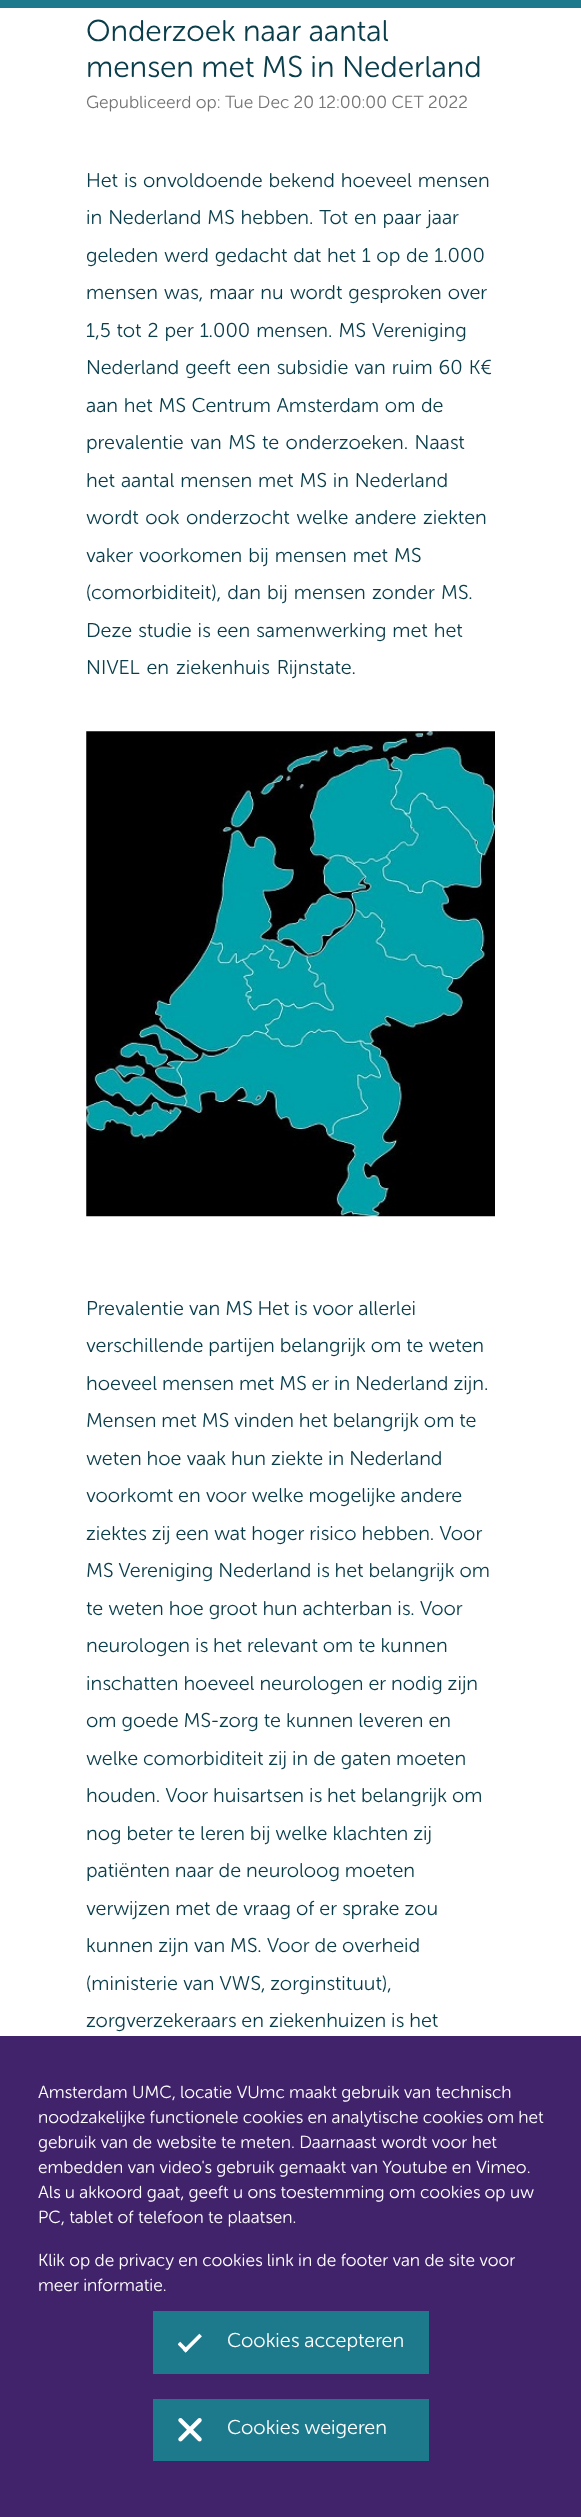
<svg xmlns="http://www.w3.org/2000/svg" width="581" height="2517">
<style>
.a{font:30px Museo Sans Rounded;fill:#093d4a}
.b{font:17.5px Museo Sans Rounded;fill:#757575}
.c{font:20px Museo Sans Rounded;fill:#093d4a}
.d{font:17.5px Museo Sans Rounded;fill:#fff}
.e{font:20px Museo Sans Rounded;fill:#fff}
</style>
<rect width="100%" height="100%" fill="#fff"/>
<path fill="#1d798c" d="M0 0h581v8H0z"/>
<image href="1.png" x="86" y="731" width="409" height="486"/>
<path fill="#40236b" d="M0 2036h581v481H0z"/>
<path fill="#1d798c" d="M153 2311h276v63H153z"/>
<image href="2.png" x="178" y="2333" width="24" height="20"/>
<path fill="#1d798c" d="M153 2399h276v62H153z"/>
<image href="3.png" x="178" y="2418" width="24" height="24"/>
<text class="a" x="86" y="41">Onderzoek naar aantal</text>
<text class="a" x="86" y="77">mensen met MS in Nederland</text>
<text class="b" x="86" y="108">Gepubliceerd op: Tue Dec 20 12:00:00 CET 2022</text>
<text class="c" x="86" y="187" word-spacing="1">Het is onvoldoende bekend hoeveel mensen</text>
<text class="c" x="86" y="224" word-spacing="1">in Nederland MS hebben. Tot en paar jaar</text>
<text class="c" x="86" y="262" word-spacing="0.75">geleden werd gedacht dat het 1 op de 1.000</text>
<text class="c" x="86" y="299" word-spacing="1">mensen was, maar nu wordt gesproken over</text>
<text class="c" x="86" y="337" word-spacing="1">1,5 tot 2 per 1.000 mensen. MS Vereniging</text>
<text class="c" x="86" y="374" word-spacing="1">Nederland geeft een subsidie van ruim 60 K€</text>
<text class="c" x="86" y="412" word-spacing="0.75">aan het MS Centrum Amsterdam om de</text>
<text class="c" x="86" y="449" word-spacing="1.5">prevalentie van MS te onderzoeken. Naast</text>
<text class="c" x="86" y="487" word-spacing="1">het aantal mensen met MS in Nederland</text>
<text class="c" x="86" y="524" word-spacing="1.5">wordt ook onderzocht welke andere ziekten</text>
<text class="c" x="86" y="562" word-spacing="1">vaker voorkomen bij mensen met MS</text>
<text class="c" x="86" y="599" word-spacing="1.25">(comorbiditeit), dan bij mensen zonder MS.</text>
<text class="c" x="86" y="637" word-spacing="1">Deze studie is een samenwerking met het</text>
<text class="c" x="86" y="674" word-spacing="2">NIVEL en ziekenhuis Rijnstate.</text>
<text class="c" x="86" y="1315">Prevalentie van MS Het is voor allerlei</text>
<text class="c" x="86" y="1352">verschillende partijen belangrijk om te weten</text>
<text class="c" x="86" y="1390">hoeveel mensen met MS er in Nederland zijn.</text>
<text class="c" x="86" y="1427">Mensen met MS vinden het belangrijk om te</text>
<text class="c" x="86" y="1465">weten hoe vaak hun ziekte in Nederland</text>
<text class="c" x="86" y="1502">voorkomt en voor welke mogelijke andere</text>
<text class="c" x="86" y="1540">ziektes zij een wat hoger risico hebben. Voor</text>
<text class="c" x="86" y="1577">MS Vereniging Nederland is het belangrijk om</text>
<text class="c" x="86" y="1615">te weten hoe groot hun achterban is. Voor</text>
<text class="c" x="86" y="1652">neurologen is het relevant om te kunnen</text>
<text class="c" x="86" y="1690">inschatten hoeveel neurologen er nodig zijn</text>
<text class="c" x="86" y="1727">om goede MS-zorg te kunnen leveren en</text>
<text class="c" x="86" y="1765">welke comorbiditeit zij in de gaten moeten</text>
<text class="c" x="86" y="1802">houden. Voor huisartsen is het belangrijk om</text>
<text class="c" x="86" y="1840">nog beter te leren bij welke klachten zij</text>
<text class="c" x="86" y="1877">patiënten naar de neuroloog moeten</text>
<text class="c" x="86" y="1915">verwijzen met de vraag of er sprake zou</text>
<text class="c" x="86" y="1952">kunnen zijn van MS. Voor de overheid</text>
<text class="c" x="86" y="1990">(ministerie van VWS, zorginstituut),</text>
<text class="c" x="86" y="2027">zorgverzekeraars en ziekenhuizen is het</text>
<text class="d" x="38" y="2098">Amsterdam UMC, locatie VUmc maakt gebruik van technisch</text>
<text class="d" x="38" y="2123">noodzakelijke functionele cookies en analytische cookies om het</text>
<text class="d" x="38" y="2148">gebruik van de website te meten. Daarnaast wordt voor het</text>
<text class="d" x="38" y="2173">embedden van video's gebruik gemaakt van Youtube en Vimeo.</text>
<text class="d" x="38" y="2198">Als u akkoord gaat, geeft u ons toestemming om cookies op uw</text>
<text class="d" x="38" y="2223">PC, tablet of telefoon te plaatsen.</text>
<text class="d" x="38" y="2266">Klik op de privacy en cookies link in de footer van de site voor</text>
<text class="d" x="38" y="2291">meer informatie.</text>
<text class="e" x="227" y="2347">Cookies accepteren</text>
<text class="e" x="227" y="2434">Cookies weigeren</text>
</svg>
